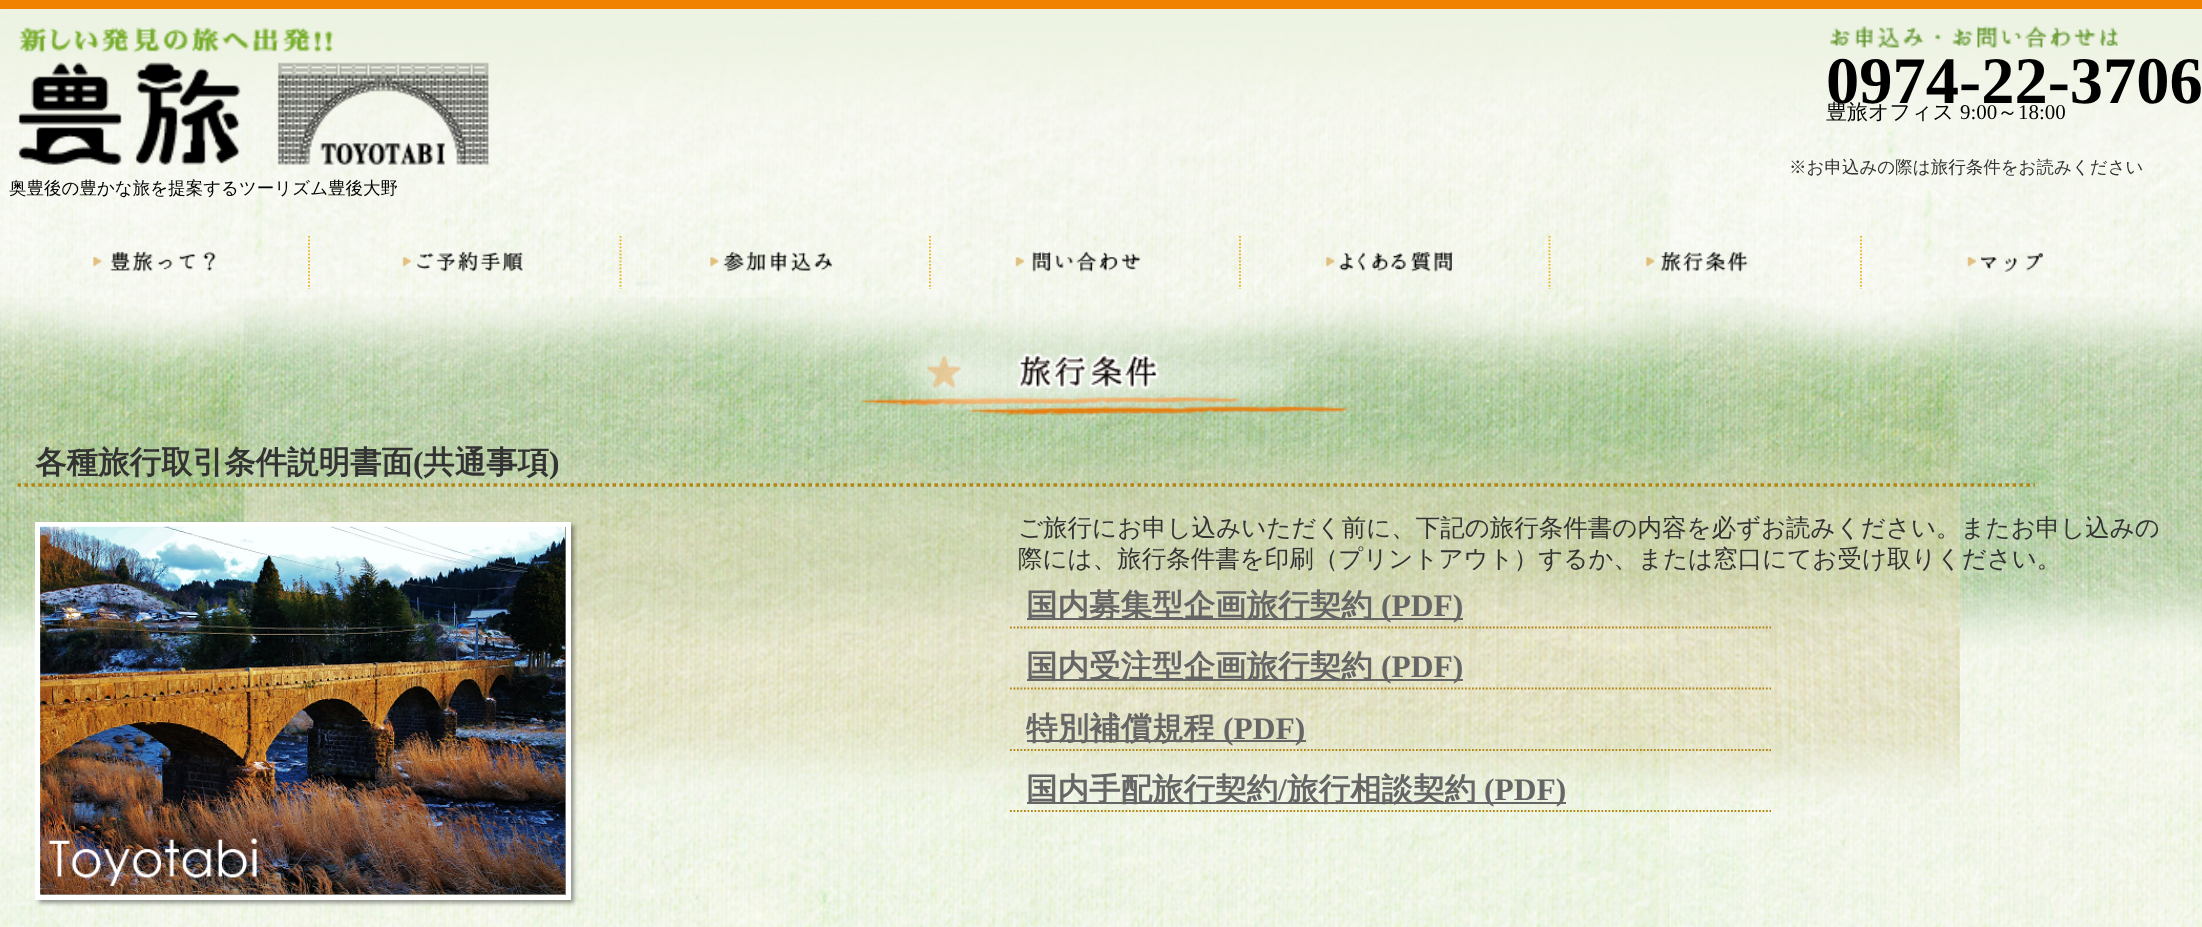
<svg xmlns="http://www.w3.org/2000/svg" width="2202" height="927">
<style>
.a{font:bold 66.5px Liberation Serif;fill:#000}
.b{font:500 21px WenQuanYi Zen Hei;fill:#000}
.c{font:21px Liberation Serif;fill:#000}
.d{font:500 17.5px WenQuanYi Zen Hei;fill:#000}
.e{font:500 17.5px WenQuanYi Zen Hei;fill:#333}
.f{font:bold 31.5px WenQuanYi Zen Hei;fill:#333}
.g{font:bold 31.5px Liberation Serif;fill:#333}
.h{font:500 24.5px WenQuanYi Zen Hei;fill:#333}
.i{font:bold 31.5px WenQuanYi Zen Hei;fill:#666}
.j{font:bold 31.5px Liberation Serif;fill:#666}
</style>
<rect width="100%" height="100%" fill="#fff"/>
<image href="1.png" x="0" y="9" width="2202" height="918"/>
<path fill="#f08200" d="M0 0h2202v9H0z"/>
<image href="2.png" x="1830" y="26" width="288" height="22"/>
<image href="3.png" x="18" y="27" width="471" height="138"/>
<path fill="none" stroke="#ebb222" stroke-width="1.8" stroke-dasharray="1.75 1.75" d="M309 236v53"/>
<image href="4.png" x="93" y="251" width="123" height="21"/>
<path fill="none" stroke="#ebb222" stroke-width="1.8" stroke-dasharray="1.75 1.75" d="M620.5 236v53"/>
<image href="5.png" x="402" y="251" width="121" height="21"/>
<path fill="none" stroke="#ebb222" stroke-width="1.8" stroke-dasharray="1.75 1.75" d="M930 236v53"/>
<image href="6.png" x="710" y="251" width="123" height="21"/>
<path fill="none" stroke="#ebb222" stroke-width="1.8" stroke-dasharray="1.75 1.75" d="M1240 236v53"/>
<image href="7.png" x="1015" y="251" width="126" height="21"/>
<path fill="none" stroke="#ebb222" stroke-width="1.8" stroke-dasharray="1.75 1.75" d="M1549.5 236v53"/>
<image href="8.png" x="1326" y="251" width="127" height="21"/>
<path fill="none" stroke="#ebb222" stroke-width="1.8" stroke-dasharray="1.75 1.75" d="M1861 236v53"/>
<image href="9.png" x="1646" y="251" width="102" height="21"/>
<image href="10.png" x="1967" y="253" width="76" height="19"/>
<image href="11.png" x="0" y="297" width="2202" height="351"/>
<image href="12.png" x="858" y="337" width="490" height="78"/>
<image href="13.png" x="245" y="441" width="1715" height="358"/>
<path fill="none" stroke="#b38614" stroke-width="3.5" stroke-dasharray="3.5 3.5" d="M17.5 485h2017.5"/>
<path fill="#00000066" filter="blur(2px)" d="M39 525h535v378H39z"/>
<path fill="none" stroke="#fff" stroke-width="5" d="M37.5 524.5h531v373H37.5z"/>
<image href="14.png" x="40" y="526" width="526" height="369"/>
<path fill="none" stroke="#b38614" stroke-width="1.8" stroke-dasharray="1.75 1.75" d="M1010 627.5h761"/>
<path fill="#666" d="M1027 618h436v2H1027z"/>
<path fill="none" stroke="#b38614" stroke-width="1.8" stroke-dasharray="1.75 1.75" d="M1010 688.5h761"/>
<path fill="#666" d="M1027 679h436v2H1027z"/>
<path fill="none" stroke="#b38614" stroke-width="1.8" stroke-dasharray="1.75 1.75" d="M1010 750h761"/>
<path fill="#666" d="M1027 740h279v2H1027z"/>
<path fill="none" stroke="#b38614" stroke-width="1.8" stroke-dasharray="1.75 1.75" d="M1010 811h761"/>
<path fill="#666" d="M1027 802h539v2H1027z"/>
<text class="a" x="1826" y="103">0974-22-3706</text>
<text class="b" x="1826" y="119">豊旅オフィス</text>
<text class="c" x="1960" y="119">9:00</text>
<text class="b" x="1997" y="119">～</text>
<text class="c" x="2018" y="119">18:00</text>
<text class="d" x="9" y="194">奥豊後の豊かな旅を提案するツーリズム豊後大野</text>
<text class="e" x="1789" y="173">※お申込みの際は旅行条件をお読みください</text>
<text class="f" x="35" y="473">各種旅行取引条件説明書面</text>
<text class="g" x="413" y="473">(</text>
<text class="f" x="423" y="473">共通事項</text>
<text class="g" x="549" y="473">)</text>
<text class="h" x="1018" y="536">ご旅行にお申し込みいただく前に、下記の旅行条件書の内容を必ずお読みください。またお申し込みの</text>
<text class="h" x="1018" y="567">際には、旅行条件書を印刷（プリントアウト）するか、または窓口にてお受け取りください。</text>
<text class="i" x="1026" y="616">国内募集型企画旅行契約</text>
<text class="j" x="1381" y="616">(PDF)</text>
<text class="i" x="1026" y="677">国内受注型企画旅行契約</text>
<text class="j" x="1381" y="677">(PDF)</text>
<text class="i" x="1026" y="739">特別補償規程</text>
<text class="j" x="1223" y="739">(PDF)</text>
<text class="i" x="1026" y="800">国内手配旅行契約</text>
<text class="j" x="1278" y="800">/</text>
<text class="i" x="1287" y="800">旅行相談契約</text>
<text class="j" x="1484" y="800">(PDF)</text>
</svg>
